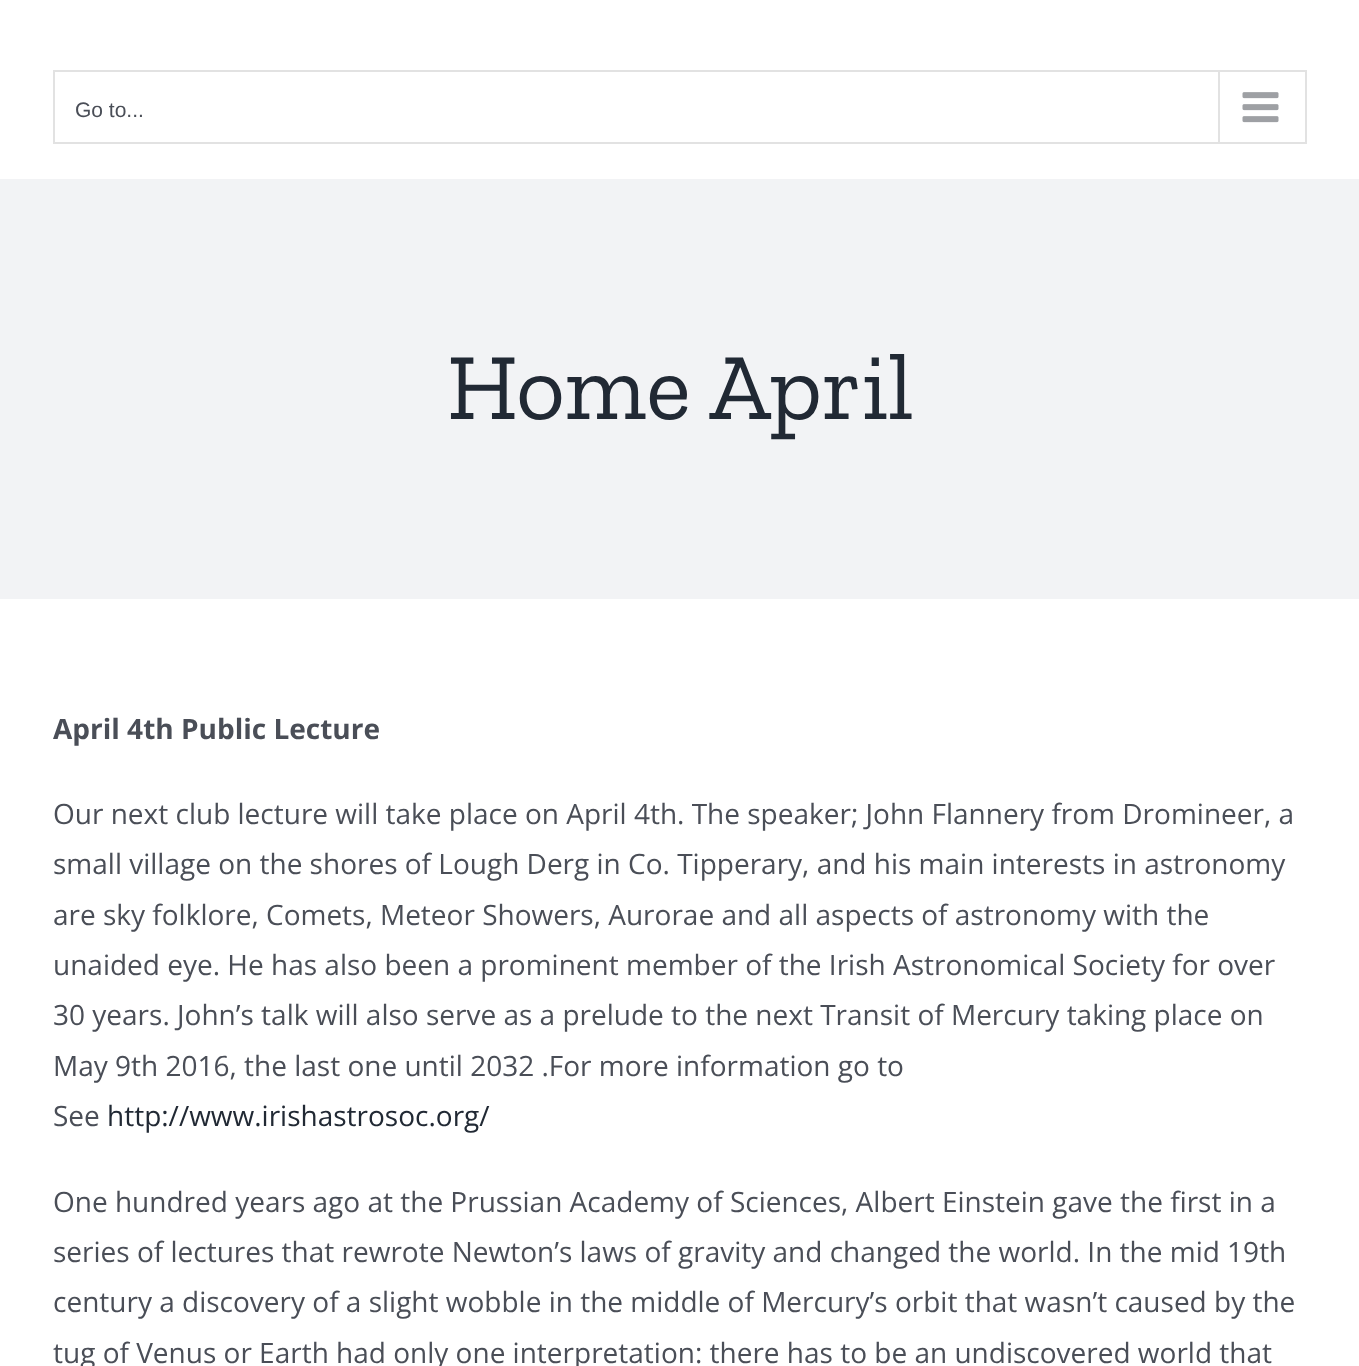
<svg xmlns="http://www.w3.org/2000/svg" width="1359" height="1366">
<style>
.a{font:21px Liberation Sans;fill:#4a4e57}
.b{font:94.5px Zilla Slab;fill:#212934}
.c{font:bold 28px Open Sans;fill:#4a4e57}
.d{font:28px Open Sans;fill:#4a4e57}
.e{font:28px Open Sans;fill:#212934}
</style>
<rect width="100%" height="100%" fill="#fff"/>
<path fill="none" stroke="#e2e2e2" stroke-width="2" d="M54 71h1252v72H54z"/>
<path fill="#e2e2e2" d="M1218 72h2v70H1218z"/>
<image href="1.png" x="1242" y="92" width="37" height="31"/>
<path fill="#f2f3f5" d="M0 179h1359v420H0z"/>
<text class="a" x="75" y="117">Go to...</text>
<text class="b" x="447" y="419">Home April</text>
<text class="c" x="53" y="739">April 4th Public Lecture</text>
<text class="d" x="53" y="824">Our next club lecture will take place on April 4th. The speaker; John Flannery from Dromineer, a</text>
<text class="d" x="53" y="874">small village on the shores of Lough Derg in Co. Tipperary, and his main interests in astronomy</text>
<text class="d" x="53" y="925">are sky folklore, Comets, Meteor Showers, Aurorae and all aspects of astronomy with the</text>
<text class="d" x="53" y="975">unaided eye. He has also been a prominent member of the Irish Astronomical Society for over</text>
<text class="d" x="53" y="1025">30 years. John’s talk will also serve as a prelude to the next Transit of Mercury taking place on</text>
<text class="d" x="53" y="1076">May 9th 2016, the last one until 2032 .For more information go to</text>
<text class="d" x="53" y="1126">See</text>
<text class="e" x="107" y="1126">http://www.irishastrosoc.org/</text>
<text class="d" x="53" y="1212">One hundred years ago at the Prussian Academy of Sciences, Albert Einstein gave the first in a</text>
<text class="d" x="53" y="1262">series of lectures that rewrote Newton’s laws of gravity and changed the world. In the mid 19th</text>
<text class="d" x="53" y="1312">century a discovery of a slight wobble in the middle of Mercury’s orbit that wasn’t caused by the</text>
<text class="d" x="53" y="1363">tug of Venus or Earth had only one interpretation: there has to be an undiscovered world that</text>
</svg>
